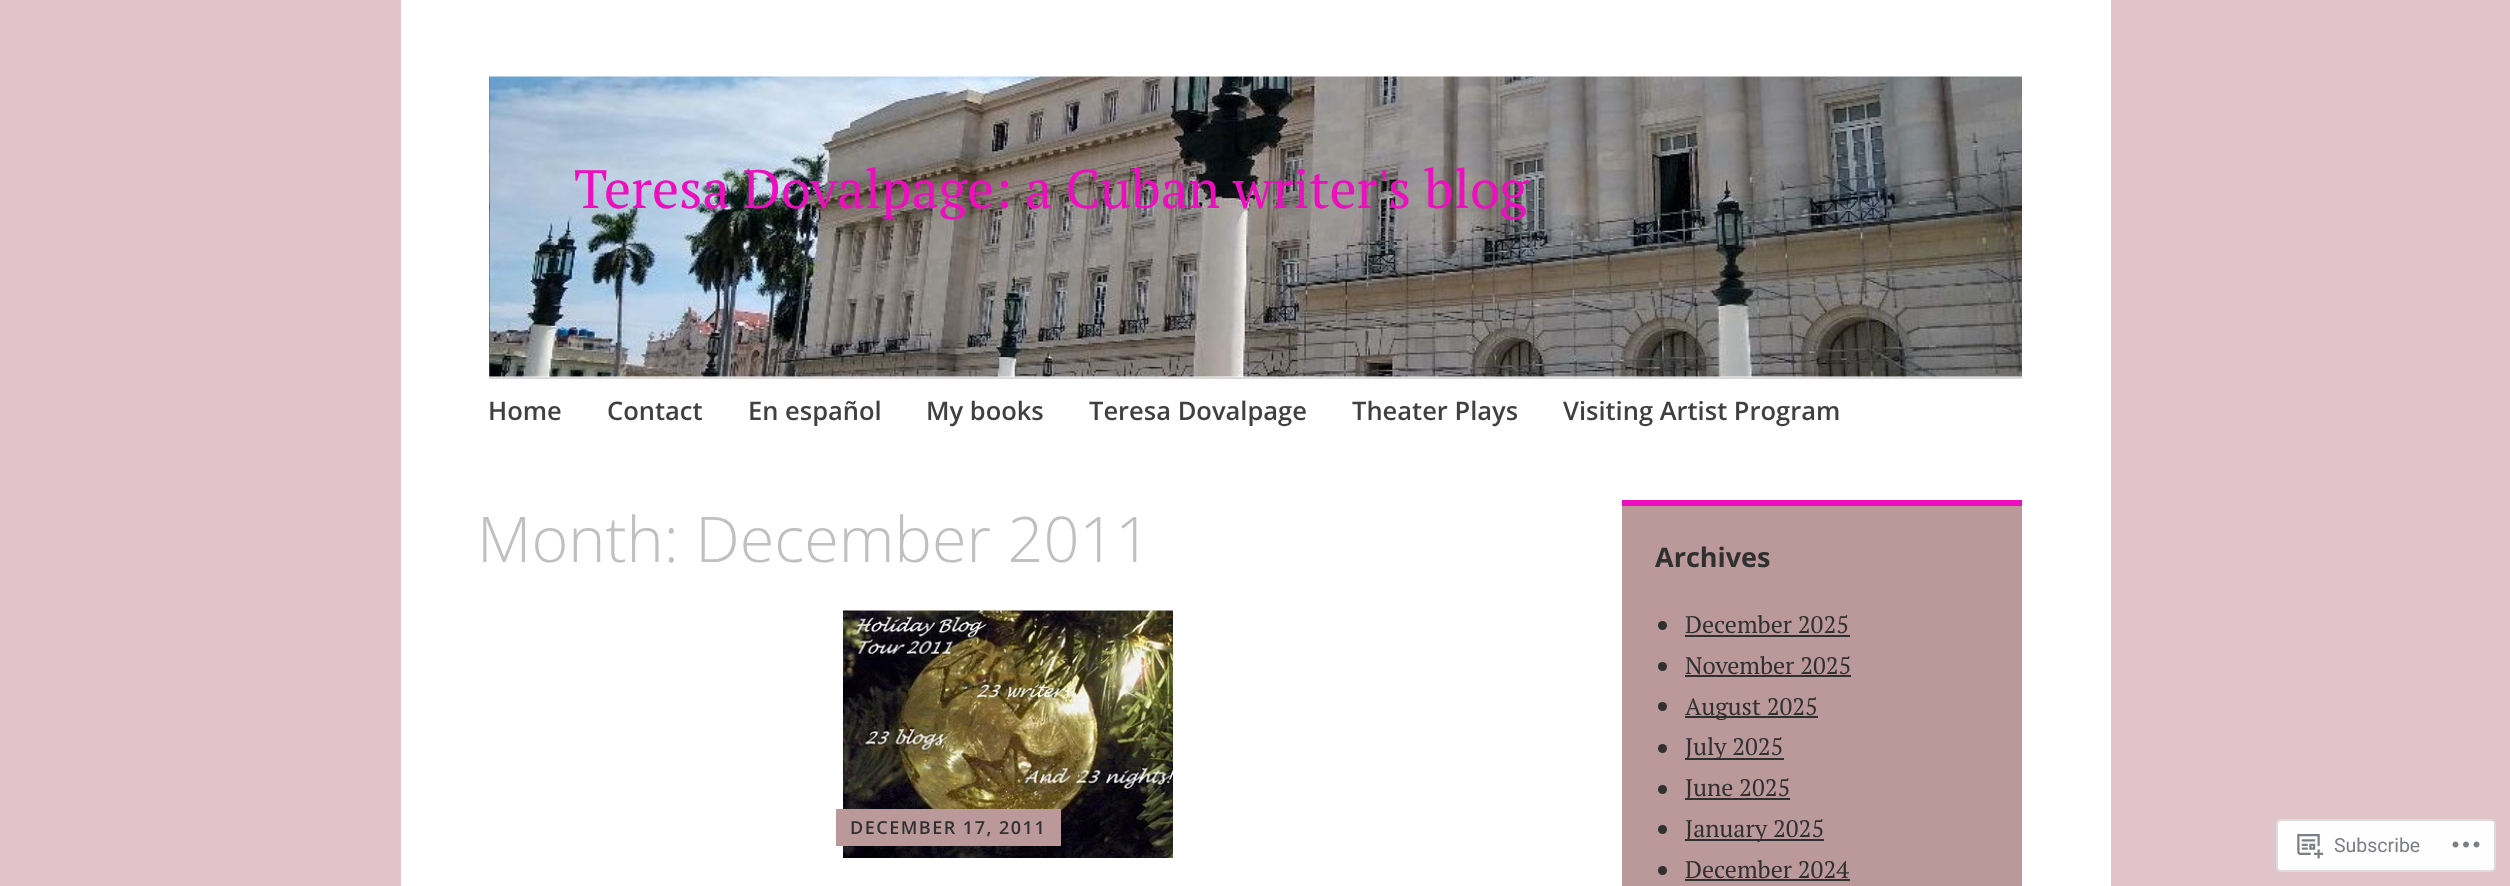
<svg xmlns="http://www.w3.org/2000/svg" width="2510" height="886">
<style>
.a{font:54px PT Serif;fill:#ed0ebd}
.b{font:600 25.5px Open Sans;fill:#404040}
.c{font:300 63px Open Sans;fill:#c0c0c0}
.d{font:600 18px Open Sans;letter-spacing:1.5px;fill:#303030}
.e{font:bold 27px Open Sans;fill:#303030}
.f{font:24px PT Serif;fill:#303030}
.g{font:19.5px Roboto;fill:#7a7d83}
</style>
<rect width="100%" height="100%" fill="#e0c4ca"/>
<path fill="#fff" d="M401 0h1710v886H401z"/>
<image href="1.png" x="489" y="76" width="1533" height="301"/>
<path fill="#d9d9d9" d="M489 377h1533v2H489z"/>
<image href="2.png" x="843" y="610" width="330" height="248"/>
<path fill="#bb999a" d="M836 809h225v37H836z"/>
<path fill="#bb999a" d="M1622 506h400v380H1622z"/>
<path fill="#ed0ebd" d="M1622 500h400v6H1622z"/>
<circle fill="#303030" cx="1662.5" cy="625.5" r="4.5"/>
<path fill="#303030" d="M1685 635h165v2H1685z"/>
<circle fill="#303030" cx="1662.5" cy="666.5" r="4.5"/>
<path fill="#303030" d="M1685 675h166v2H1685z"/>
<circle fill="#303030" cx="1662.5" cy="706.5" r="4.5"/>
<path fill="#303030" d="M1685 716h133v2H1685z"/>
<circle fill="#303030" cx="1662.5" cy="748.5" r="4.5"/>
<path fill="#303030" d="M1685 758h99v2H1685z"/>
<circle fill="#303030" cx="1662.5" cy="789.5" r="4.5"/>
<path fill="#303030" d="M1685 798h105v2H1685z"/>
<circle fill="#303030" cx="1662.5" cy="829.5" r="4.5"/>
<path fill="#303030" d="M1685 839h139v2H1685z"/>
<circle fill="#303030" cx="1662.5" cy="870.5" r="4.5"/>
<path fill="#303030" d="M1685 879h165v2H1685z"/>
<rect fill="#fefefe" stroke="#dcdcde" stroke-width="2" x="2277" y="820" width="218" height="51" rx="4"/>
<image href="3.png" x="2297" y="834" width="27" height="25"/>
<image href="4.png" x="2452" y="841" width="28" height="7"/>
<text class="a" x="574" y="208">Teresa Dovalpage: a Cuban writer's blog</text>
<text class="b" x="488" y="420">Home</text>
<text class="b" x="607" y="420">Contact</text>
<text class="b" x="748" y="420">En español</text>
<text class="b" x="926" y="420">My books</text>
<text class="b" x="1089" y="420">Teresa Dovalpage</text>
<text class="b" x="1352" y="420">Theater Plays</text>
<text class="b" x="1563" y="420">Visiting Artist Program</text>
<text class="c" x="477" y="562">Month: December 2011</text>
<text class="d" x="850" y="834">DECEMBER 17, 2011</text>
<text class="e" x="1655" y="567">Archives</text>
<text class="f" x="1685" y="633">December 2025</text>
<text class="f" x="1685" y="674">November 2025</text>
<text class="f" x="1685" y="715">August 2025</text>
<text class="f" x="1685" y="755">July 2025</text>
<text class="f" x="1685" y="796">June 2025</text>
<text class="f" x="1685" y="837">January 2025</text>
<text class="f" x="1685" y="878">December 2024</text>
<text class="g" x="2334" y="852">Subscribe</text>
</svg>
